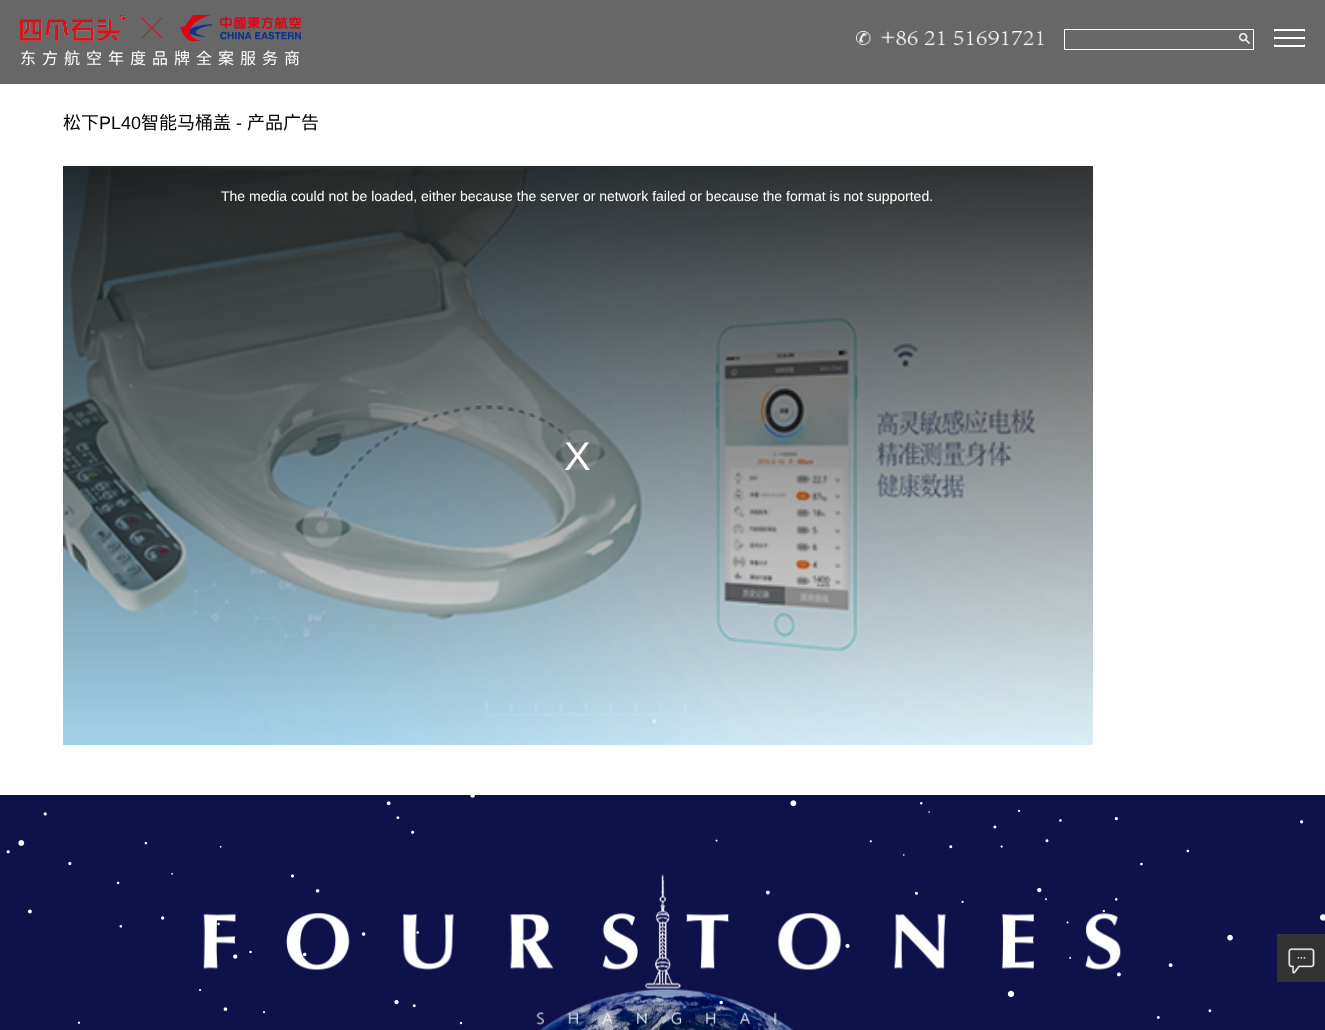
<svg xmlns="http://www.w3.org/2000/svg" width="1325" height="1030">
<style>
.a{font:16px Noto Sans CJK SC;letter-spacing:6px;fill:#fff}
.b{font:18px Noto Sans CJK SC;fill:#000}
.c{font:18px Liberation Sans;fill:#000}
.d{font:14px Liberation Sans;fill:#fff}
.e{font:40px Liberation Sans;fill:#fff}
</style>
<rect width="100%" height="100%" fill="#fff"/>
<path fill="#676767" d="M0 0h1325v84H0z"/>
<image href="1.png" x="856" y="31" width="188" height="15"/>
<path fill="none" stroke="#fff" d="M1064.5 29.5h189v20H1064.5z"/>
<image href="2.png" x="1239" y="33" width="11" height="11"/>
<image href="3.png" x="1274" y="29" width="31" height="18"/>
<image href="4.png" x="20" y="15" width="143" height="26"/>
<image href="5.png" x="180" y="15" width="121" height="26"/>
<image href="6.png" x="63" y="166" width="1030" height="579"/>
<image href="7.png" x="0" y="795" width="1325" height="235"/>
<image href="9.png" x="203" y="874" width="918" height="151"/>
<image href="8.png" x="6" y="795" width="1319" height="230"/>
<image href="10.png" x="1277" y="934" width="48" height="48"/>
<text class="a" x="20" y="64">东方航空年度品牌全案服务商</text>
<text class="b" x="63" y="129">松下</text>
<text class="c" x="99" y="129">PL40</text>
<text class="b" x="141" y="129">智能马桶盖</text>
<text class="c" x="236" y="129">-</text>
<text class="b" x="247" y="129">产品广告</text>
<text class="d" x="221" y="201">The media could not be loaded, either because the server or network failed or because the format is not supported.</text>
<text class="e" x="564" y="470">X</text>
</svg>
